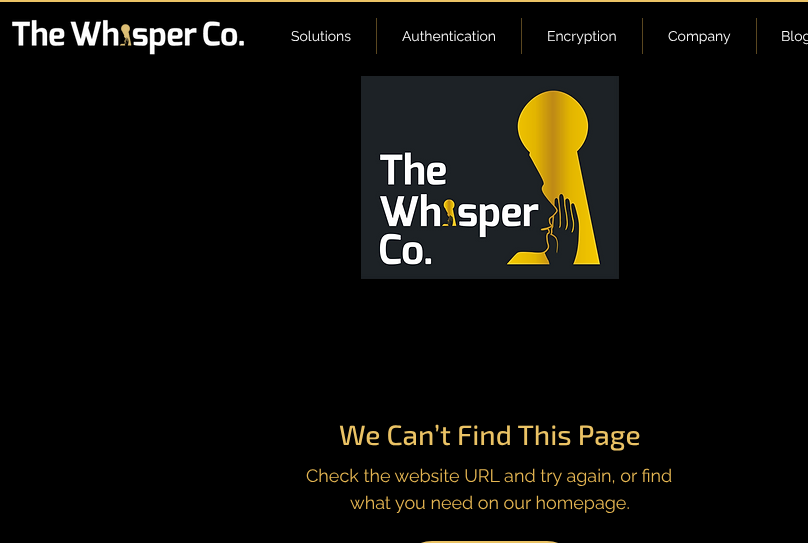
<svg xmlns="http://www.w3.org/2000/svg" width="808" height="543">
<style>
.a{font:14px Raleway;fill:#fff}
.b{font:500 28px 'Exo 2';fill:#ebc365}
.c{font:18px Raleway;fill:#e6b753}
</style>
<rect width="100%" height="100%" fill="#000"/>
<path fill="#ebc365" d="M0 0h808v2H0z"/>
<image href="1.png" x="12" y="19" width="232" height="36"/>
<path fill="#5a4720" d="M376 18h1v36H376z"/>
<path fill="#5a4720" d="M521 18h1v36H521z"/>
<path fill="#5a4720" d="M642 18h1v36H642z"/>
<path fill="#5a4720" d="M756 18h1v36H756z"/>
<image href="2.png" x="361" y="76" width="258" height="203"/>
<rect fill="none" stroke="#ebc365" stroke-width="2" x="413" y="542" width="153" height="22" rx="19"/>
<text class="a" x="291" y="41">Solutions</text>
<text class="a" x="402" y="41">Authentication</text>
<text class="a" x="547" y="41">Encryption</text>
<text class="a" x="668" y="41">Company</text>
<text class="a" x="781" y="41">Blog</text>
<text class="b" x="339" y="445">We Can’t Find This Page</text>
<text class="c" x="306" y="482">Check the website URL and try again, or find</text>
<text class="c" x="350" y="509">what you need on our homepage.</text>
</svg>
